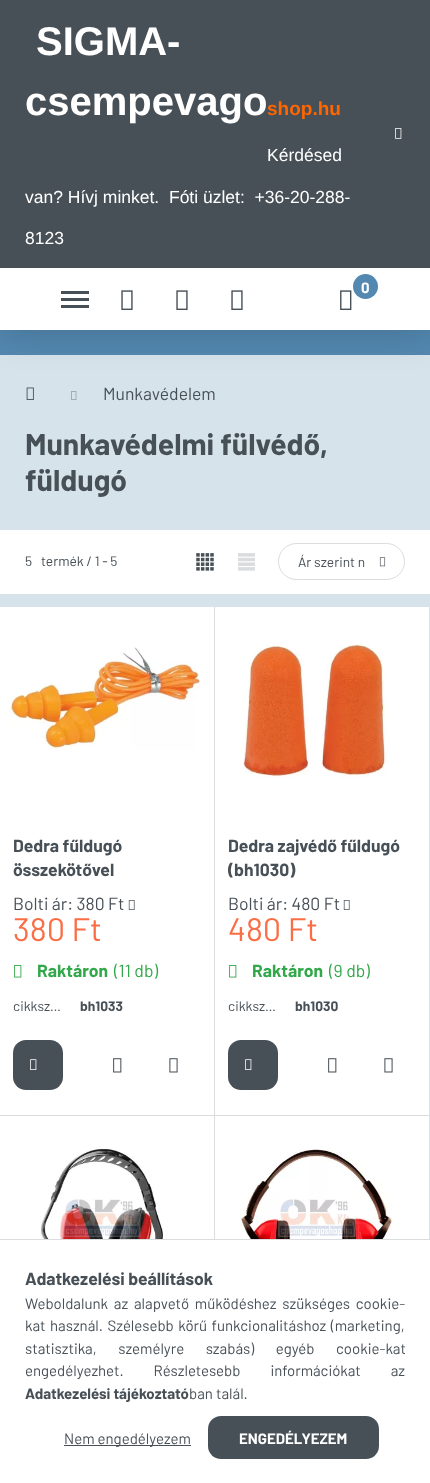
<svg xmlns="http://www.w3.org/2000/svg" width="430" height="1483">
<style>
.a{font:bold 40px Liberation Sans;fill:#fff}
.b{font:bold 19px Liberation Sans;fill:#f60}
.c{font:17.5px Liberation Sans;fill:#fff}
.d{font:bold 15px Barlow;fill:#fff}
.e{font:17.5px Barlow;fill:#485057}
.f{font:bold 30px Barlow;fill:#485057}
.g{font:13.75px Barlow;fill:#485057}
.h{font:bold 17.5px Barlow;fill:#485057}
.i{font:32.5px Barlow;fill:#fa6e46}
.j{font:bold 17.5px Barlow;fill:#32a84a}
.k{font:17.5px Barlow;fill:#32a84a}
.l{font:bold 13.75px Barlow;fill:#485057}
.m{font:15px Barlow;fill:#485057}
.n{font:bold 15px Barlow;fill:#485057}
</style>
<defs>
<linearGradient id="g1" gradientUnits="userSpaceOnUse" x1="13" y1="1065" x2="163" y2="1065"><stop offset="0.33" stop-color="#485057"/><stop offset="0.67" stop-color="#5388b0"/></linearGradient>
<linearGradient id="g2" gradientUnits="userSpaceOnUse" x1="228" y1="1065" x2="378" y2="1065"><stop offset="0.33" stop-color="#485057"/><stop offset="0.67" stop-color="#5388b0"/></linearGradient>
<linearGradient id="g3" gradientUnits="userSpaceOnUse" x1="208" y1="1438" x2="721" y2="1438"><stop offset="0.33" stop-color="#485057"/><stop offset="0.67" stop-color="#5388b0"/></linearGradient>
<clipPath id="clip1"><path d="M228 834h190v49H228z"/></clipPath>
</defs>
<rect width="100%" height="100%" fill="#d6e3eb"/>
<path fill="#5388b0" d="M0 330h430v25H0z"/>
<image href="4.png" x="26" y="387" width="8" height="13"/>
<path fill="#00000033" filter="blur(19px)" d="M0 268h430v62H0z"/>
<path fill="#485057" d="M0 0h430v268H0z"/>
<image href="1.png" x="395" y="128" width="7" height="11"/>
<path fill="#fff" d="M0 268h430v62H0z"/>
<circle fill="#5388b0" cx="365.5" cy="286.5" r="12.5"/>
<image href="2.png" x="340" y="290" width="12" height="20"/>
<path fill="#485057" d="M61 291h28v3H61z"/>
<path fill="#485057" d="M61 298h28v3H61z"/>
<path fill="#485057" d="M61 305h28v3H61z"/>
<image href="3.png" x="121" y="290" width="12" height="20"/>
<image href="3.png" x="176" y="290" width="12" height="20"/>
<image href="3.png" x="231" y="290" width="12" height="20"/>
<image href="5.png" x="71" y="391" width="6" height="9"/>
<path fill="#fff" d="M0 530h430v64H0z"/>
<image href="6.png" x="196" y="553" width="18" height="18"/>
<image href="7.png" x="238" y="553" width="17" height="18"/>
<rect fill="none" stroke="#dadcdd" x="278.5" y="543.5" width="126" height="36" rx="18"/>
<image href="8.png" x="379" y="557" width="7" height="10"/>
<path fill="#fff" d="M0 607h214v508H0z"/>
<image href="9.png" x="9" y="647" width="192" height="103"/>
<image href="10.png" x="128" y="900" width="7" height="10"/>
<image href="11.png" x="14" y="965" width="8" height="13"/>
<rect fill="url(#g1)" x="13" y="1040" width="50" height="50" rx="13"/>
<image href="12.png" x="30" y="1059" width="7" height="11"/>
<image href="13.png" x="113" y="1058" width="9" height="15"/>
<image href="14.png" x="169" y="1058" width="9" height="15"/>
<path fill="#dadcdd" d="M214 606h1v509H214z"/>
<path fill="#d6e3eb" d="M214 606h1v1H214z"/>
<path fill="#dadcdd" d="M0 1115h430v1H0z"/>
<path fill="#d6e3eb" d="M429 1115h1v1H429z"/>
<path fill="#fff" d="M215 607h214v508H215z"/>
<image href="15.png" x="243" y="644" width="145" height="134"/>
<image href="10.png" x="343" y="900" width="7" height="10"/>
<image href="11.png" x="229" y="965" width="8" height="13"/>
<rect fill="url(#g2)" x="228" y="1040" width="50" height="50" rx="13"/>
<image href="12.png" x="245" y="1059" width="7" height="11"/>
<image href="13.png" x="328" y="1058" width="9" height="15"/>
<image href="14.png" x="384" y="1058" width="9" height="15"/>
<path fill="#fff" d="M0 1116h214v123H0z"/>
<image href="16.png" x="40" y="1149" width="123" height="90"/>
<path fill="#dadcdd" d="M214 1115h1v124H214z"/>
<path fill="#fff" d="M215 1116h214v123H215z"/>
<image href="17.png" x="240" y="1149" width="153" height="90"/>
<path fill="#fff" d="M0 1240h430v243H0z"/>
<path fill="#dadcdd" d="M0 1239h430v1H0z"/>
<path fill="#485057" d="M64 1445h127v1H64z"/>
<rect fill="url(#g3)" x="208" y="1416" width="171" height="43" rx="13"/>
<text class="a" x="36" y="55">SIGMA-</text>
<text class="a" x="25" y="115">csempevago</text>
<text class="b" x="267" y="115">shop.hu</text>
<text class="c" x="267" y="161">Kérdésed</text>
<text class="c" xml:space="preserve" x="25" y="203">van? Hívj minket.  Fóti üzlet:  +36-20-288-</text>
<text class="c" x="25" y="244">8123</text>
<text class="d" x="361" y="293">0</text>
<text class="e" x="103" y="400">Munkavédelem</text>
<text class="f" x="25" y="455">Munkavédelmi fülvédő,</text>
<text class="f" x="25" y="491">füldugó</text>
<text class="g" x="25" y="566">5</text>
<text class="g" x="41" y="566">termék / 1 - 5</text>
<text class="g" x="298" y="567">Ár szerint n</text>
<text class="h" x="13" y="852">Dedra fűldugó</text>
<text class="h" x="13" y="876">összekötővel</text>
<text class="e" x="13" y="910">Bolti ár: 380 Ft</text>
<text class="i" x="13" y="941">380 Ft</text>
<text class="j" x="37" y="977">Raktáron</text>
<text class="k" x="114" y="977">(11 db)</text>
<text class="g" x="13" y="1011">cikksz…</text>
<text class="l" x="80" y="1011">bh1033</text>
<text class="h" x="228" y="852">Dedra zajvédő fűldugó</text>
<g clip-path="url(#clip1)">
<text class="h" x="228" y="876">(bh1030)</text>
</g>
<text class="e" x="228" y="910">Bolti ár: 480 Ft</text>
<text class="i" x="228" y="941">480 Ft</text>
<text class="j" x="252" y="977">Raktáron</text>
<text class="k" x="329" y="977">(9 db)</text>
<text class="g" x="228" y="1011">cikksz…</text>
<text class="l" x="295" y="1011">bh1030</text>
<text class="h" x="25" y="1285">Adatkezelési beállítások</text>
<text class="m" x="25" y="1309" word-spacing="2.75">Weboldalunk az alapvető működéshez szükséges cookie-</text>
<text class="m" x="25" y="1331" word-spacing="1.5">kat használ. Szélesebb körű funkcionalitáshoz (marketing,</text>
<text class="m" x="25" y="1354" word-spacing="18.5">statisztika, személyre szabás) egyéb cookie-kat</text>
<text class="m" x="25" y="1376" word-spacing="27">engedélyezhet. Részletesebb információkat az</text>
<text class="n" x="25" y="1399">Adatkezelési tájékoztató</text>
<text class="m" x="189" y="1399">ban talál.</text>
<text class="m" x="64" y="1444">Nem engedélyezem</text>
<text class="d" x="239" y="1444">ENGEDÉLYEZEM</text>
</svg>
